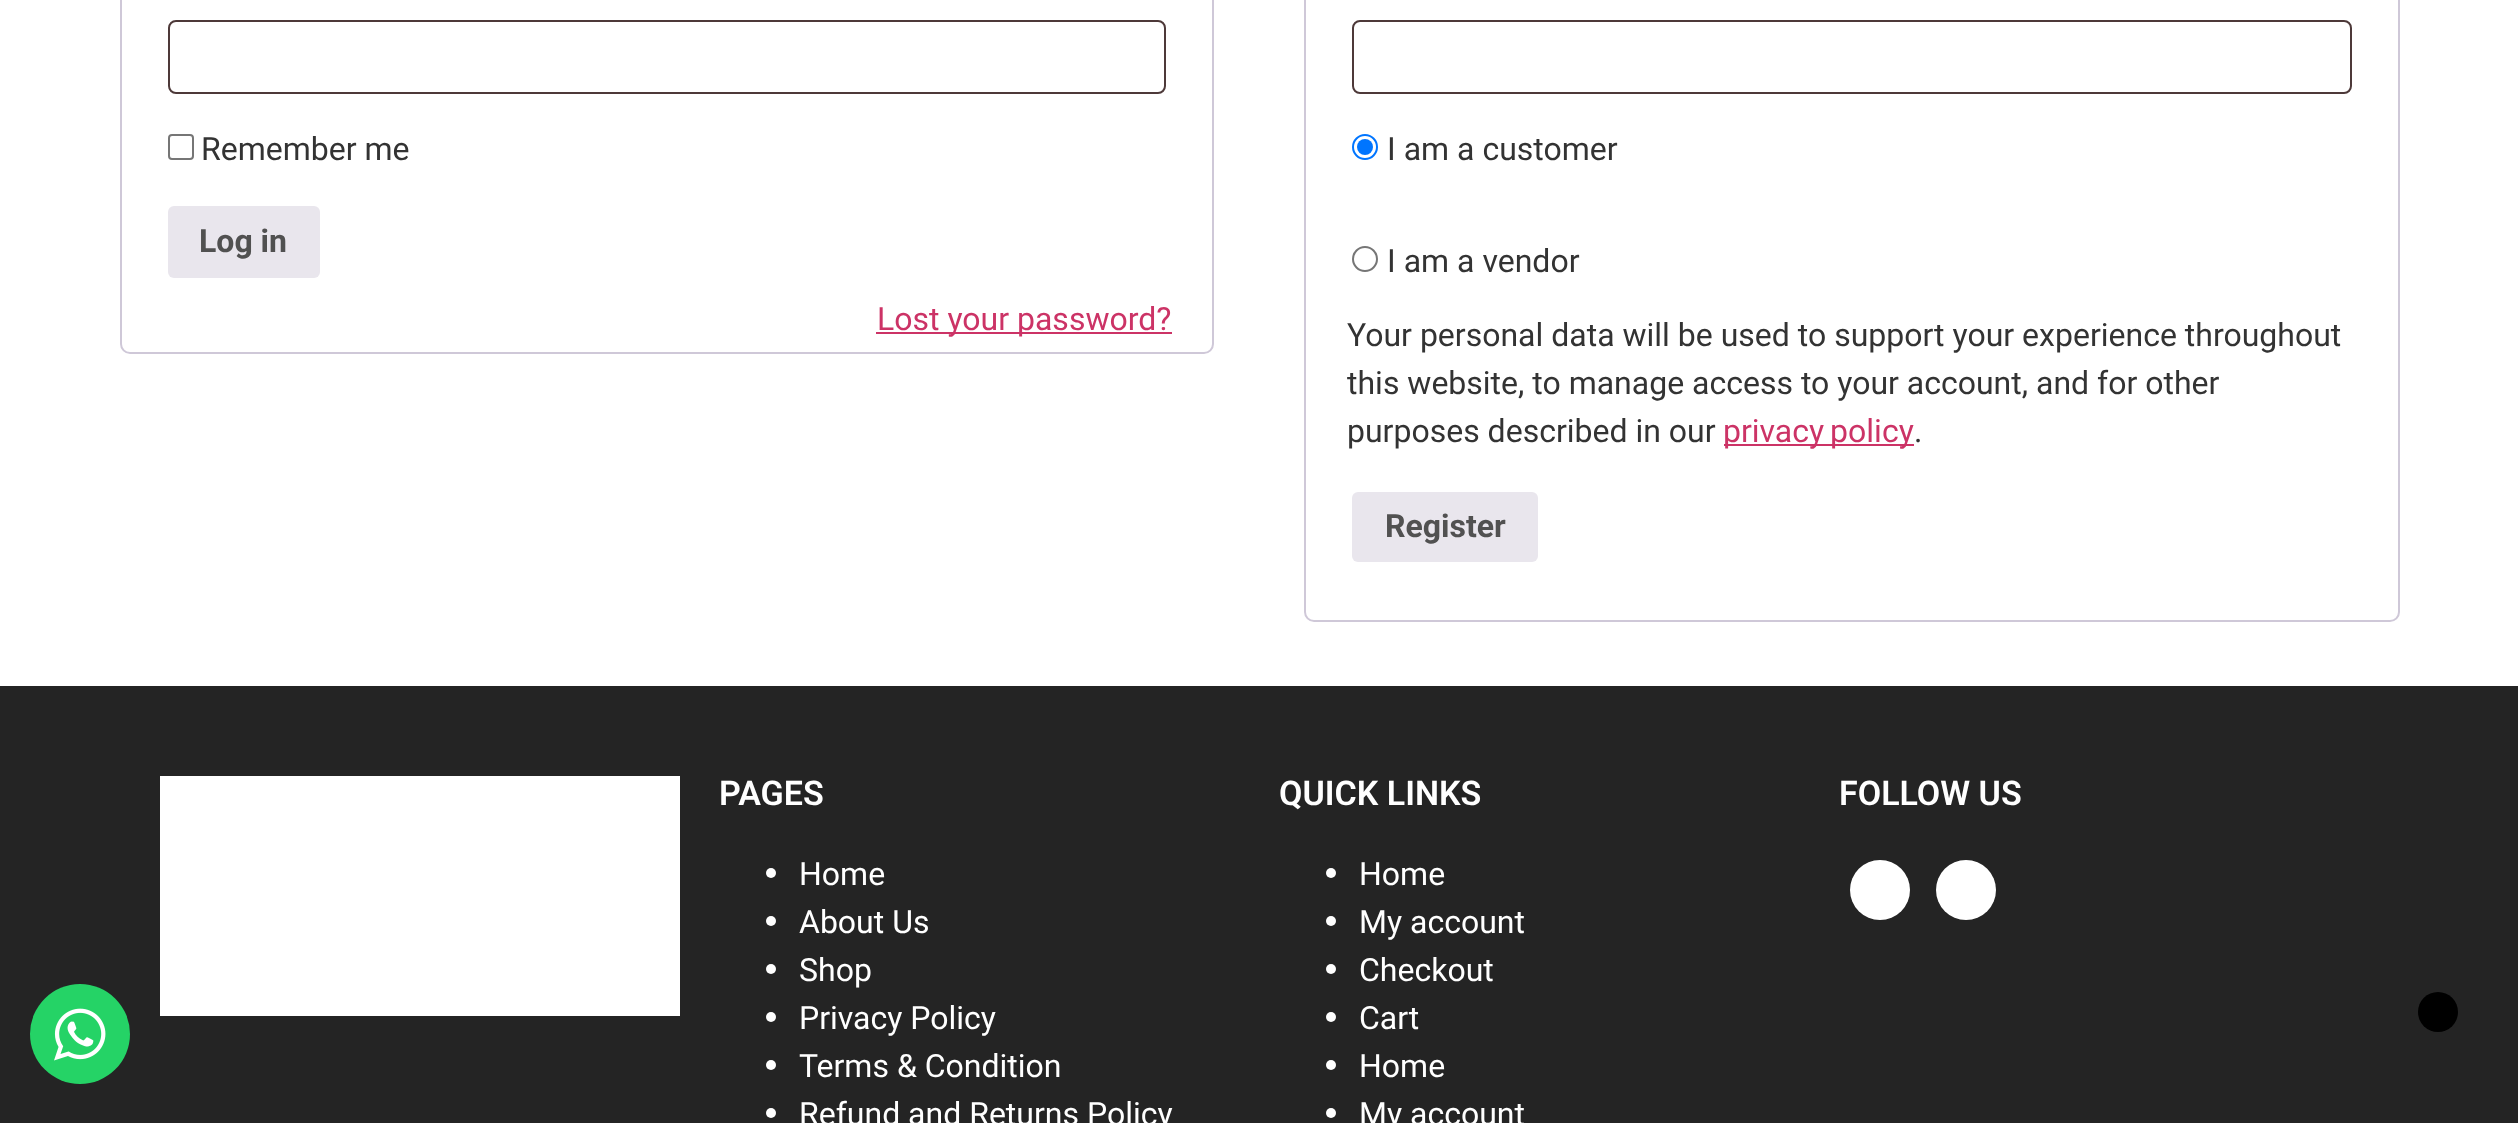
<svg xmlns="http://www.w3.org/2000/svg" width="2518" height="1123">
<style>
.a{font:32px Roboto;fill:#333}
.b{font:bold 32px Roboto;fill:#515151}
.c{font:32px Roboto;fill:#c36}
.d{font:600 34px Roboto;fill:#fff}
.e{font:32px Roboto;fill:#fff}
</style>
<rect width="100%" height="100%" fill="#fff"/>
<rect fill="none" stroke="#cfc8d8" stroke-width="2" x="121" y="-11" width="1092" height="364" rx="9"/>
<rect fill="none" stroke="#4d3939" stroke-width="2" x="169" y="21" width="996" height="72" rx="7"/>
<rect fill="none" stroke="#767676" stroke-width="2" x="169" y="135" width="24" height="24" rx="3"/>
<rect fill="#e9e6ed" x="168" y="206" width="152" height="72" rx="6"/>
<path fill="#c36" d="M876 332h296v2H876z"/>
<rect fill="none" stroke="#cfc8d8" stroke-width="2" x="1305" y="-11" width="1094" height="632" rx="9"/>
<rect fill="none" stroke="#4d3939" stroke-width="2" x="1353" y="21" width="998" height="72" rx="7"/>
<circle fill="none" stroke="#0075ff" stroke-width="2" cx="1365" cy="147" r="12"/>
<circle fill="#0075ff" cx="1365" cy="147" r="8"/>
<circle fill="none" stroke="#767676" stroke-width="2" cx="1365" cy="259" r="12"/>
<path fill="#c36" d="M1724 444h190v2H1724z"/>
<rect fill="#e9e6ed" x="1352" y="492" width="186" height="70" rx="6"/>
<path fill="#242424" d="M0 686h2518v437H0z"/>
<circle fill="#25d366" cx="80" cy="1034" r="50"/>
<image href="1.png" x="54" y="1008" width="52" height="53"/>
<path fill="#fff" d="M160 776h520v240H160z"/>
<circle fill="#fff" cx="771" cy="873" r="5"/>
<circle fill="#fff" cx="771" cy="921" r="5"/>
<circle fill="#fff" cx="771" cy="969" r="5"/>
<circle fill="#fff" cx="771" cy="1017" r="5"/>
<circle fill="#fff" cx="771" cy="1065" r="5"/>
<circle fill="#fff" cx="771" cy="1113" r="5"/>
<circle fill="#fff" cx="1331" cy="873" r="5"/>
<circle fill="#fff" cx="1331" cy="921" r="5"/>
<circle fill="#fff" cx="1331" cy="969" r="5"/>
<circle fill="#fff" cx="1331" cy="1017" r="5"/>
<circle fill="#fff" cx="1331" cy="1065" r="5"/>
<circle fill="#fff" cx="1331" cy="1113" r="5"/>
<circle fill="#fff" cx="1880" cy="890" r="30"/>
<circle fill="#fff" cx="1966" cy="890" r="30"/>
<circle fill="#000" cx="2438" cy="1012" r="20"/>
<text class="a" x="201" y="160">Remember me</text>
<text class="b" x="199" y="252">Log in</text>
<text class="c" x="877" y="330">Lost your password?</text>
<text class="a" x="1387" y="160">I am a customer</text>
<text class="a" x="1387" y="272">I am a vendor</text>
<text class="a" x="1347" y="346">Your personal data will be used to support your experience throughout</text>
<text class="a" x="1347" y="394">this website, to manage access to your account, and for other</text>
<text class="a" x="1347" y="442">purposes described in our</text>
<text class="c" x="1723" y="442" word-spacing="-2">privacy policy</text>
<text class="a" x="1914" y="442">.</text>
<text class="b" x="1385" y="537">Register</text>
<text class="d" x="719" y="805">PAGES</text>
<text class="e" x="799" y="885">Home</text>
<text class="e" x="799" y="933">About Us</text>
<text class="e" x="799" y="981">Shop</text>
<text class="e" x="799" y="1029">Privacy Policy</text>
<text class="e" x="799" y="1077">Terms &amp; Condition</text>
<text class="e" x="799" y="1125">Refund and Returns Policy</text>
<text class="d" x="1279" y="805">QUICK LINKS</text>
<text class="e" x="1359" y="885">Home</text>
<text class="e" x="1359" y="933">My account</text>
<text class="e" x="1359" y="981">Checkout</text>
<text class="e" x="1359" y="1029">Cart</text>
<text class="e" x="1359" y="1077">Home</text>
<text class="e" x="1359" y="1125">My account</text>
<text class="d" x="1839" y="805">FOLLOW US</text>
</svg>
